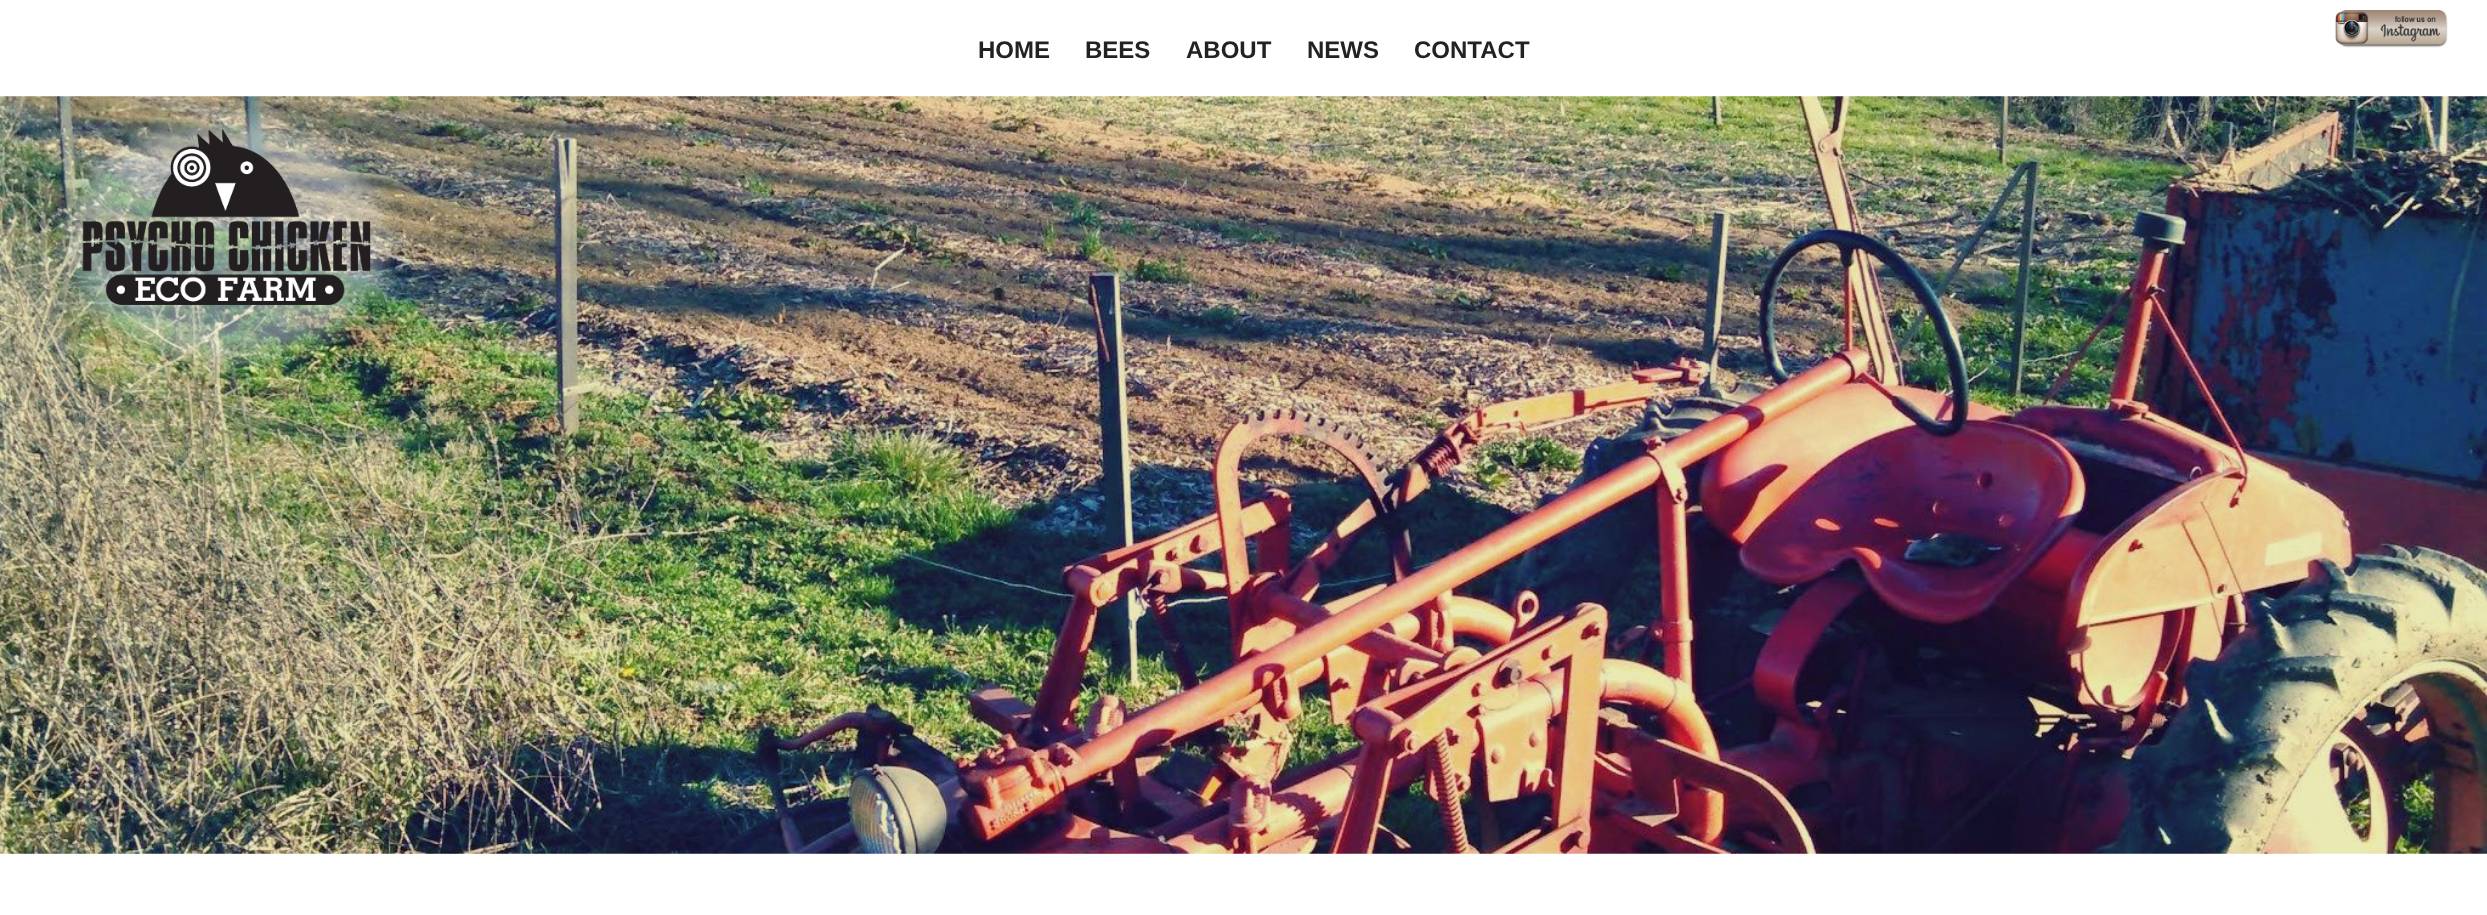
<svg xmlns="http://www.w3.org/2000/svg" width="2487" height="915">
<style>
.a{font:bold 24px Liberation Sans;fill:#222}
</style>
<rect width="100%" height="100%" fill="#fff"/>
<image href="1.png" x="2335" y="10" width="113" height="38"/>
<image href="3.png" x="0" y="96" width="2487" height="758"/>
<image href="2.png" x="52" y="109" width="348" height="263"/>
<text class="a" x="978" y="58">HOME</text>
<text class="a" x="1085" y="58">BEES</text>
<text class="a" x="1186" y="58">ABOUT</text>
<text class="a" x="1307" y="58">NEWS</text>
<text class="a" x="1414" y="58">CONTACT</text>
</svg>
